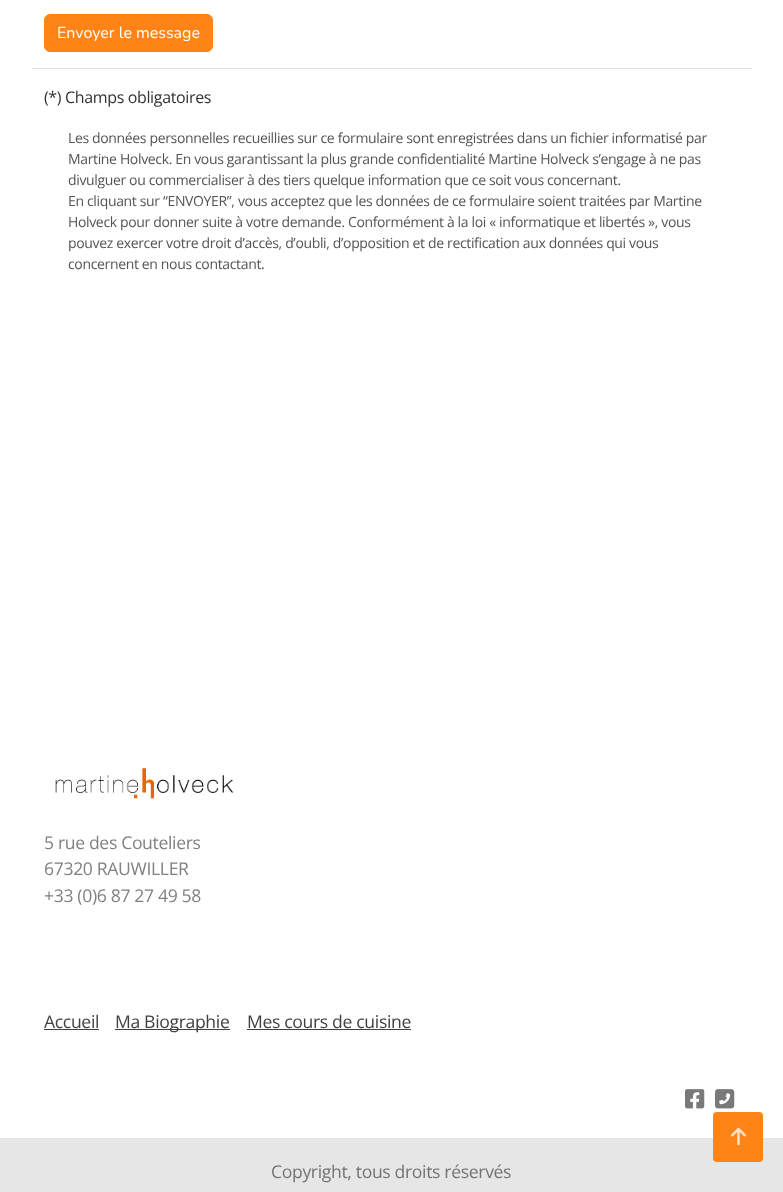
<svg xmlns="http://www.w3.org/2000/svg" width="783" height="1192">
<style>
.a{font:200 16px Nunito;fill:#fff}
.b{font:16px Open Sans;letter-spacing:-0.35px;fill:#333}
.c{font:14px Open Sans;letter-spacing:-0.35px;fill:#545454}
.d{font:17.6px Open Sans;letter-spacing:-0.35px;fill:#808080}
.e{font:17.6px Open Sans;letter-spacing:-0.35px;fill:#404040}
.f{font:17.6px Open Sans;letter-spacing:-0.35px;fill:#737373}
</style>
<rect width="100%" height="100%" fill="#fff"/>
<rect fill="#fe8417" stroke="#fe8417" x="44.5" y="14.5" width="168" height="37" rx="5.5"/>
<path fill="#dee2e6" d="M32 68h720v1H32z"/>
<image href="1.png" x="55" y="768" width="179" height="31"/>
<path fill="#404040" d="M44 1029h55v1H44z"/>
<path fill="#404040" d="M115 1029h115v1H115z"/>
<path fill="#404040" d="M247 1029h164v1H247z"/>
<image href="2.png" x="685" y="1089" width="20" height="20"/>
<image href="3.png" x="715" y="1089" width="20" height="20"/>
<path fill="#e6e6e6" d="M0 1138h783v54H0z"/>
<rect fill="#fe8417" x="713" y="1112" width="50" height="50" rx="4"/>
<image href="4.png" x="731" y="1127" width="15" height="19"/>
<text class="a" x="57" y="38">Envoyer le message</text>
<text class="b" x="44" y="103">(*) Champs obligatoires</text>
<text class="c" x="68" y="143">Les données personnelles recueillies sur ce formulaire sont enregistrées dans un fichier informatisé par</text>
<text class="c" x="68" y="164">Martine Holveck. En vous garantissant la plus grande confidentialité Martine Holveck s’engage à ne pas</text>
<text class="c" x="68" y="185">divulguer ou commercialiser à des tiers quelque information que ce soit vous concernant.</text>
<text class="c" x="68" y="206">En cliquant sur “ENVOYER”, vous acceptez que les données de ce formulaire soient traitées par Martine</text>
<text class="c" x="68" y="227">Holveck pour donner suite à votre demande. Conformément à la loi « informatique et libertés », vous</text>
<text class="c" x="68" y="248">pouvez exercer votre droit d’accès, d’oubli, d’opposition et de rectification aux données qui vous</text>
<text class="c" x="68" y="269">concernent en nous contactant.</text>
<text class="d" x="44" y="849">5 rue des Couteliers</text>
<text class="d" x="44" y="875">67320 RAUWILLER</text>
<text class="d" x="44" y="902">+33 (0)6 87 27 49 58</text>
<text class="e" x="44" y="1028">Accueil</text>
<text class="e" x="115" y="1028">Ma Biographie</text>
<text class="e" x="247" y="1028">Mes cours de cuisine</text>
<text class="f" x="271" y="1178">Copyright, tous droits réservés</text>
</svg>
